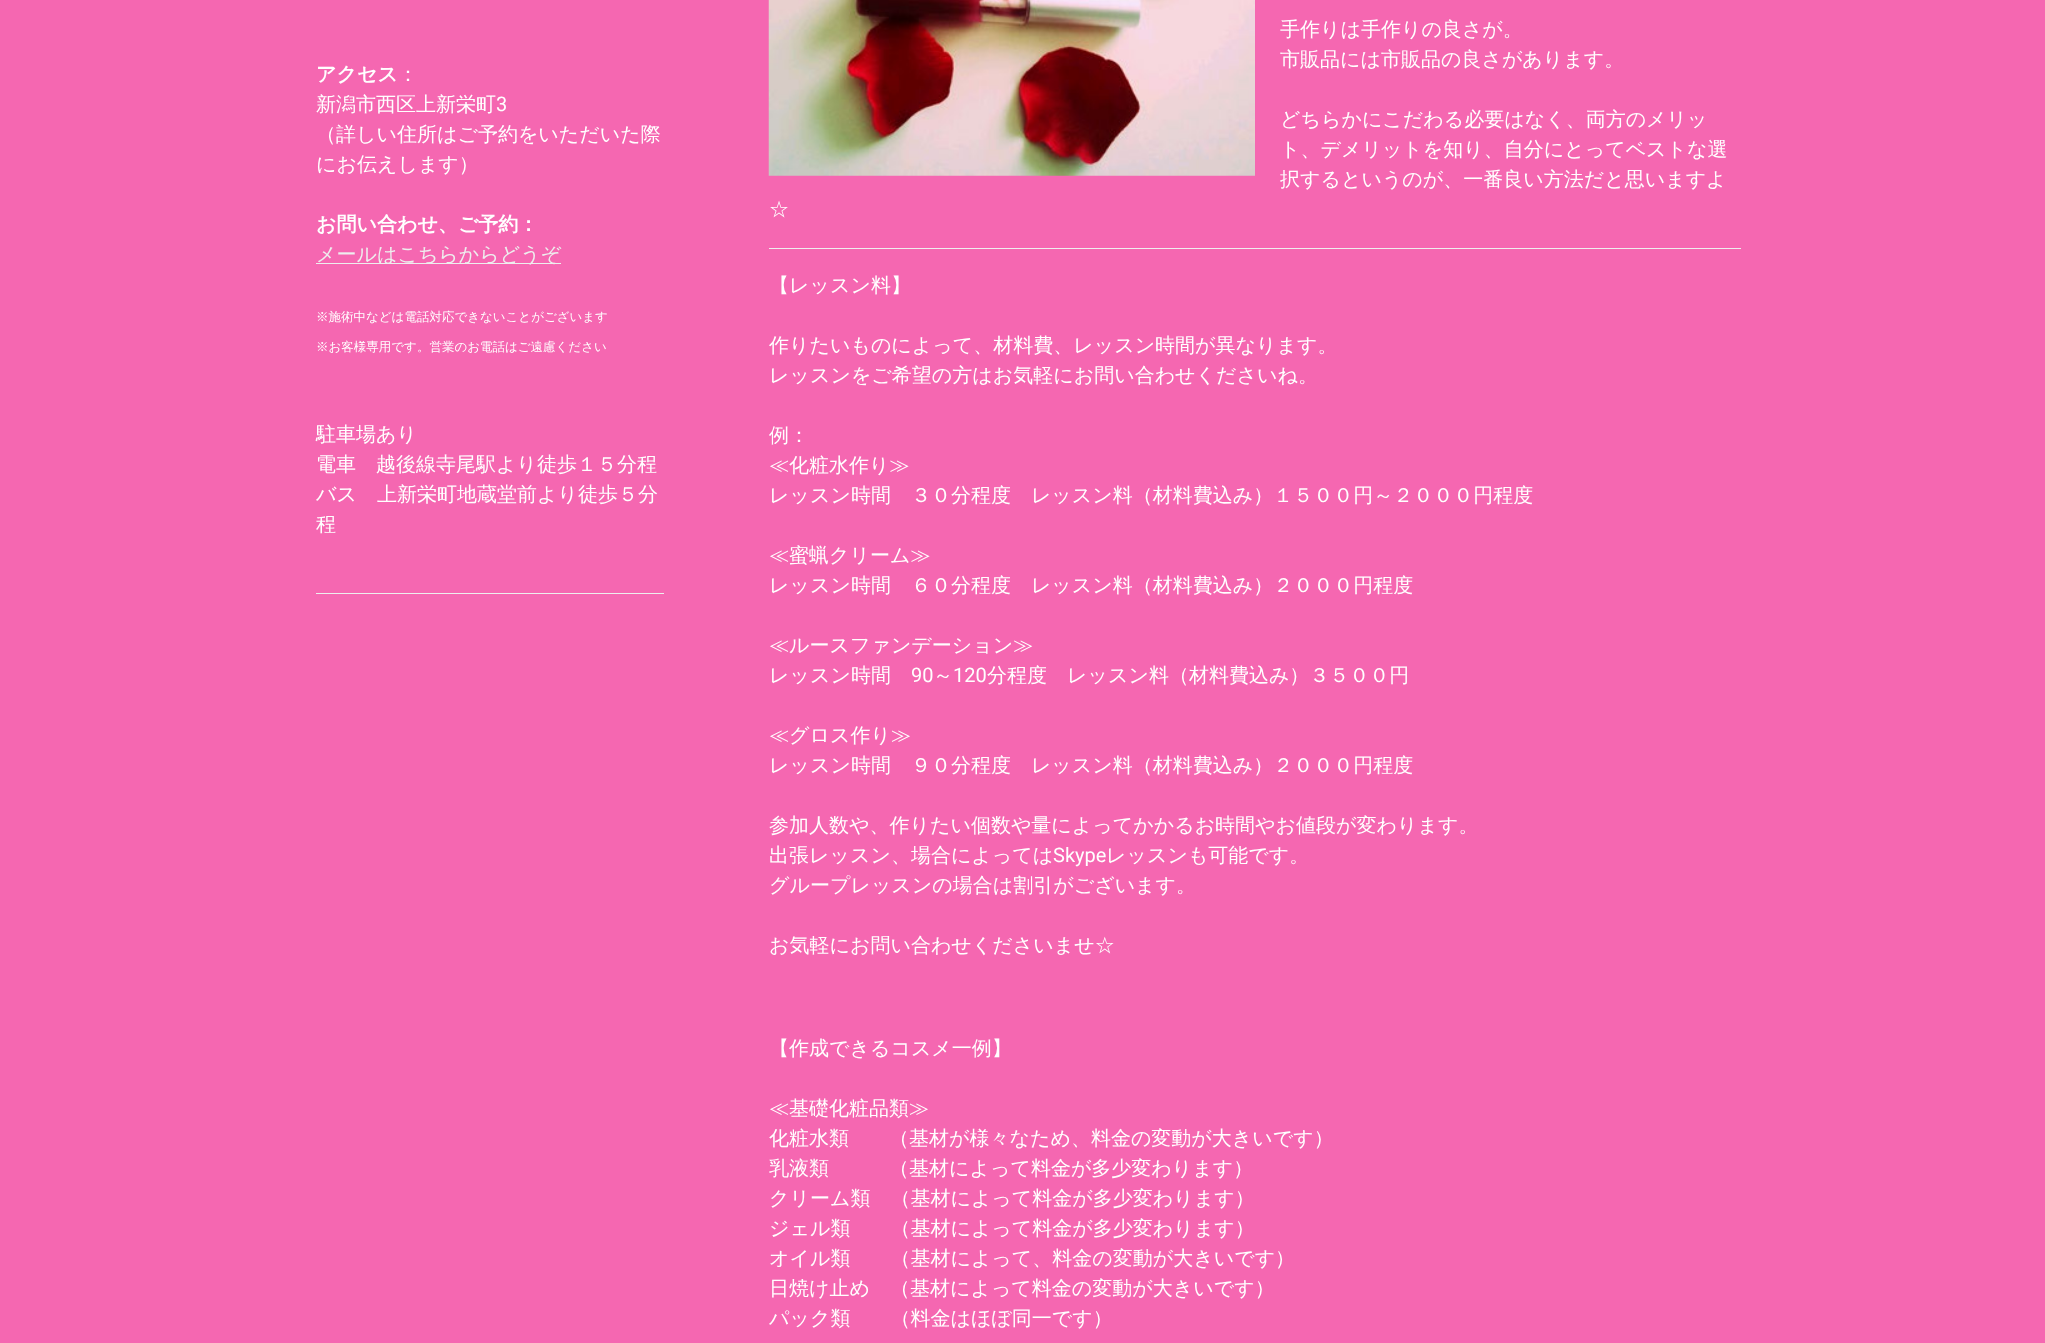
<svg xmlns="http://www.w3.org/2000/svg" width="2045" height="1343">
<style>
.a{font:bold 20px WenQuanYi Zen Hei;fill:#fff}
.b{font:500 20px WenQuanYi Zen Hei;fill:#fff}
.c{font:20px Roboto;fill:#fff}
.d{font:500 20px WenQuanYi Zen Hei;fill:#eee}
.e{font:500 12.5px WenQuanYi Zen Hei;fill:#fff}
</style>
<rect width="100%" height="100%" fill="#f567b1"/>
<path fill="#eee" d="M316 263h245v1H316z"/>
<path fill="#eee" d="M316 593h348v1H316z"/>
<image href="1.png" x="768" y="0" width="487" height="176"/>
<path fill="#eee" d="M769 248h972v1H769z"/>
<text class="a" x="316" y="81">アクセス</text>
<text class="b" x="398" y="81">：</text>
<text class="b" x="316" y="111">新潟市西区上新栄町</text>
<text class="c" x="496" y="111">3</text>
<text class="b" x="316" y="141">（詳しい住所はご予約をいただいた際</text>
<text class="b" x="316" y="171">にお伝えします）</text>
<text class="a" x="316" y="231">お問い合わせ、ご予約：</text>
<text class="d" x="316" y="261">メールはこちらからどうぞ</text>
<text class="e" x="316" y="321">※施術中などは電話対応できないことがございます</text>
<text class="e" x="316" y="351">※お客様専用です。営業のお電話はご遠慮ください</text>
<text class="b" x="316" y="441">駐車場あり</text>
<text class="b" x="316" y="471">電車　越後線寺尾駅より徒歩１５分程</text>
<text class="b" x="316" y="501">バス　上新栄町地蔵堂前より徒歩５分</text>
<text class="b" x="316" y="531">程</text>
<text class="b" x="1280" y="36">手作りは手作りの良さが。</text>
<text class="b" x="1280" y="66">市販品には市販品の良さがあります。</text>
<text class="b" x="1280" y="126">どちらかにこだわる必要はなく、両方のメリッ</text>
<text class="b" x="1280" y="156">ト、デメリットを知り、自分にとってベストな選</text>
<text class="b" x="1280" y="186">択するというのが、一番良い方法だと思いますよ</text>
<text class="b" x="769" y="216">☆</text>
<text class="b" x="769" y="292">【レッスン料】</text>
<text class="b" x="769" y="352">作りたいものによって、材料費、レッスン時間が異なります。</text>
<text class="b" x="769" y="382">レッスンをご希望の方はお気軽にお問い合わせくださいね。</text>
<text class="b" x="769" y="442">例：</text>
<text class="b" x="769" y="472">≪化粧水作り≫</text>
<text class="b" x="769" y="502">レッスン時間　３０分程度　レッスン料（材料費込み）１５００円～２０００円程度</text>
<text class="b" x="769" y="562">≪蜜蝋クリーム≫</text>
<text class="b" x="769" y="592">レッスン時間　６０分程度　レッスン料（材料費込み）２０００円程度</text>
<text class="b" x="769" y="652">≪ルースファンデーション≫</text>
<text class="b" x="769" y="682">レッスン時間</text>
<text class="c" x="911" y="682">90</text>
<text class="b" x="933" y="682">～</text>
<text class="c" x="953" y="682">120</text>
<text class="b" x="987" y="682">分程度　レッスン料（材料費込み）３５００円</text>
<text class="b" x="769" y="742">≪グロス作り≫</text>
<text class="b" x="769" y="772">レッスン時間　９０分程度　レッスン料（材料費込み）２０００円程度</text>
<text class="b" x="769" y="832">参加人数や、作りたい個数や量によってかかるお時間やお値段が変わります。</text>
<text class="b" x="769" y="862">出張レッスン、場合によっては</text>
<text class="c" x="1053" y="862">Skype</text>
<text class="b" x="1106" y="862">レッスンも可能です。</text>
<text class="b" x="769" y="892">グループレッスンの場合は割引がございます。</text>
<text class="b" x="769" y="952">お気軽にお問い合わせくださいませ☆</text>
<text class="b" x="769" y="1055">【作成できるコスメ一例】</text>
<text class="b" x="769" y="1115">≪基礎化粧品類≫</text>
<text class="b" x="769" y="1145">化粧水類　　（基材が様々なため、料金の変動が大きいです）</text>
<text class="b" x="769" y="1175">乳液類　　　（基材によって料金が多少変わります）</text>
<text class="b" x="769" y="1205">クリーム類　（基材によって料金が多少変わります）</text>
<text class="b" x="769" y="1235">ジェル類　　（基材によって料金が多少変わります）</text>
<text class="b" x="769" y="1265">オイル類　　（基材によって、料金の変動が大きいです）</text>
<text class="b" x="769" y="1295">日焼け止め　（基材によって料金の変動が大きいです）</text>
<text class="b" x="769" y="1325">パック類　　（料金はほぼ同一です）</text>
</svg>
